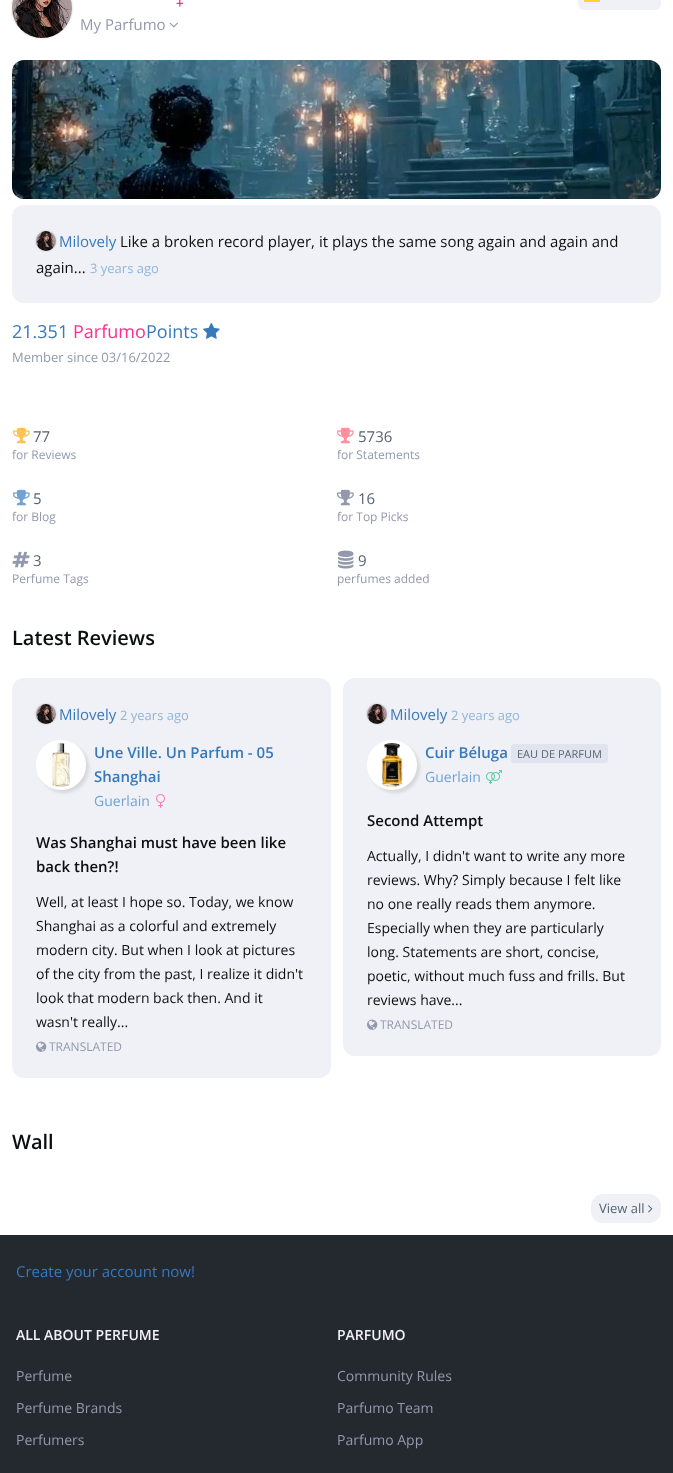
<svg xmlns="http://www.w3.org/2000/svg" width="673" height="1473">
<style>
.a{font:15px Open Sans;fill:#9299ac}
.b{font:15px Open Sans;fill:#3879bb}
.c{font:15px Open Sans;fill:#0c0f10}
.d{font:13px Open Sans;fill:#90b6de}
.e{font:18px Open Sans;fill:#3879bb}
.f{font:18px Open Sans;fill:#ff2c8c}
.g{font:13px Open Sans;fill:#9299ac}
.h{font:15px Open Sans;fill:#55636f}
.i{font:12px Open Sans;fill:#9299ac}
.j{font:600 20px Open Sans;fill:#0c0f10}
.k{font:600 15px Open Sans;fill:#3879bb}
.l{font:14px Open Sans;fill:#70a2d4}
.m{font:600 15px Open Sans;fill:#0c0f10}
.n{font:14px Open Sans;fill:#0c0f10}
.o{font:11px Open Sans;fill:#55636f}
.p{font:13px Open Sans;fill:#55636f}
.q{font:600 14px Open Sans;fill:#f0f1f6}
.r{font:14px Open Sans;fill:#9299ac}
</style>
<rect width="100%" height="100%" fill="#fff"/>
<rect fill="#f0f1f6" x="578" y="-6" width="83" height="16" rx="6"/>
<path fill="#fcd431" d="M584 0h16v2H584z"/>
<rect fill="#00000033" filter="blur(1px)" x="12" y="-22" width="60" height="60" rx="30"/>
<image href="1.png" x="12" y="0" width="60" height="38"/>
<image href="2.png" x="176" y="0" width="7" height="7"/>
<image href="3.png" x="169" y="22" width="9" height="6"/>
<image href="4.png" x="12" y="60" width="649" height="139"/>
<rect fill="#f0f1f6" x="12" y="205" width="649" height="98" rx="12"/>
<rect fill="#00000033" filter="blur(1px)" x="36" y="231" width="20" height="20" rx="10"/>
<image href="5.png" x="36" y="231" width="20" height="20"/>
<image href="6.png" x="203" y="322" width="17" height="17"/>
<image href="7.png" x="13" y="427" width="17" height="17"/>
<image href="8.png" x="337" y="427" width="17" height="17"/>
<image href="9.png" x="13" y="489" width="17" height="17"/>
<image href="10.png" x="337" y="489" width="17" height="17"/>
<image href="11.png" x="12" y="551" width="18" height="17"/>
<image href="12.png" x="338" y="550" width="16" height="19"/>
<rect fill="#f0f1f6" x="12" y="678" width="319" height="400" rx="12"/>
<rect fill="#00000033" filter="blur(1px)" x="36" y="704" width="20" height="20" rx="10"/>
<image href="5.png" x="36" y="704" width="20" height="20"/>
<rect fill="#0000001a" filter="blur(1.5px)" x="39" y="743" width="50" height="50" rx="25"/>
<circle fill="#fff" stroke="#fff" stroke-width="3" cx="61" cy="765" r="23.5"/>
<image href="13.png" x="52" y="743" width="18" height="44"/>
<image href="14.png" x="156" y="794" width="9" height="14"/>
<image href="15.png" x="36" y="1041" width="11" height="11"/>
<rect fill="#f0f1f6" x="343" y="678" width="318" height="378" rx="12"/>
<rect fill="#00000033" filter="blur(1px)" x="367" y="704" width="20" height="20" rx="10"/>
<image href="16.png" x="367" y="704" width="20" height="20"/>
<rect fill="#0000001a" filter="blur(1.5px)" x="370" y="743" width="50" height="50" rx="25"/>
<circle fill="#fff" stroke="#fff" stroke-width="3" cx="392" cy="765" r="23.5"/>
<image href="17.png" x="381" y="743" width="22" height="44"/>
<rect fill="#e1e4ee" x="511" y="744" width="97" height="19" rx="3"/>
<image href="18.png" x="486" y="770" width="16" height="14"/>
<image href="15.png" x="367" y="1019" width="11" height="11"/>
<rect fill="#f0f1f6" x="591" y="1194" width="70" height="29" rx="12"/>
<image href="19.png" x="648" y="1205" width="5" height="8"/>
<path fill="#24282f" d="M0 1235h673v238H0z"/>
<text class="a" x="80" y="30">My Parfumo</text>
<text class="b" x="59" y="247">Milovely</text>
<text class="c" x="120" y="247">Like a broken record player, it plays the same song again and again and</text>
<text class="c" x="36" y="273">again...</text>
<text class="d" x="90" y="273">3 years ago</text>
<text class="e" x="12" y="338">21.351</text>
<text class="f" x="73" y="338">Parfumo</text>
<text class="e" x="146" y="338">Points</text>
<text class="g" x="12" y="362">Member since 03/16/2022</text>
<text class="h" x="33" y="442">77</text>
<text class="i" x="12" y="459">for Reviews</text>
<text class="h" x="358" y="442">5736</text>
<text class="i" x="337" y="459">for Statements</text>
<text class="h" x="33" y="504">5</text>
<text class="i" x="12" y="521">for Blog</text>
<text class="h" x="358" y="504">16</text>
<text class="i" x="337" y="521">for Top Picks</text>
<text class="h" x="33" y="566">3</text>
<text class="i" x="12" y="583">Perfume Tags</text>
<text class="h" x="358" y="566">9</text>
<text class="i" x="337" y="583">perfumes added</text>
<text class="j" x="12" y="645">Latest Reviews</text>
<text class="b" x="59" y="720">Milovely</text>
<text class="d" x="120" y="720">2 years ago</text>
<text class="k" x="94" y="758">Une Ville. Un Parfum - 05</text>
<text class="k" x="94" y="782">Shanghai</text>
<text class="l" x="94" y="806">Guerlain</text>
<text class="m" x="36" y="848">Was Shanghai must have been like</text>
<text class="m" x="36" y="872">back then?!</text>
<text class="n" x="36" y="907">Well, at least I hope so. Today, we know</text>
<text class="n" x="36" y="931">Shanghai as a colorful and extremely</text>
<text class="n" x="36" y="955">modern city. But when I look at pictures</text>
<text class="n" x="36" y="979">of the city from the past, I realize it didn't</text>
<text class="n" x="36" y="1003">look that modern back then. And it</text>
<text class="n" x="36" y="1027">wasn't really...</text>
<text class="i" x="49" y="1051">TRANSLATED</text>
<text class="b" x="390" y="720">Milovely</text>
<text class="d" x="451" y="720">2 years ago</text>
<text class="k" x="425" y="758">Cuir Béluga</text>
<text class="o" x="517" y="758">EAU DE PARFUM</text>
<text class="l" x="425" y="782">Guerlain</text>
<text class="m" x="367" y="826">Second Attempt</text>
<text class="n" x="367" y="861">Actually, I didn't want to write any more</text>
<text class="n" x="367" y="885">reviews. Why? Simply because I felt like</text>
<text class="n" x="367" y="909">no one really reads them anymore.</text>
<text class="n" x="367" y="933">Especially when they are particularly</text>
<text class="n" x="367" y="957">long. Statements are short, concise,</text>
<text class="n" x="367" y="981">poetic, without much fuss and frills. But</text>
<text class="n" x="367" y="1005">reviews have...</text>
<text class="i" x="380" y="1029">TRANSLATED</text>
<text class="j" x="12" y="1149">Wall</text>
<text class="p" x="599" y="1213">View all</text>
<text class="b" x="16" y="1277">Create your account now!</text>
<text class="q" x="16" y="1340">ALL ABOUT PERFUME</text>
<text class="r" x="16" y="1381">Perfume</text>
<text class="r" x="16" y="1413">Perfume Brands</text>
<text class="r" x="16" y="1445">Perfumers</text>
<text class="q" x="337" y="1340">PARFUMO</text>
<text class="r" x="337" y="1381">Community Rules</text>
<text class="r" x="337" y="1413">Parfumo Team</text>
<text class="r" x="337" y="1445">Parfumo App</text>
</svg>
